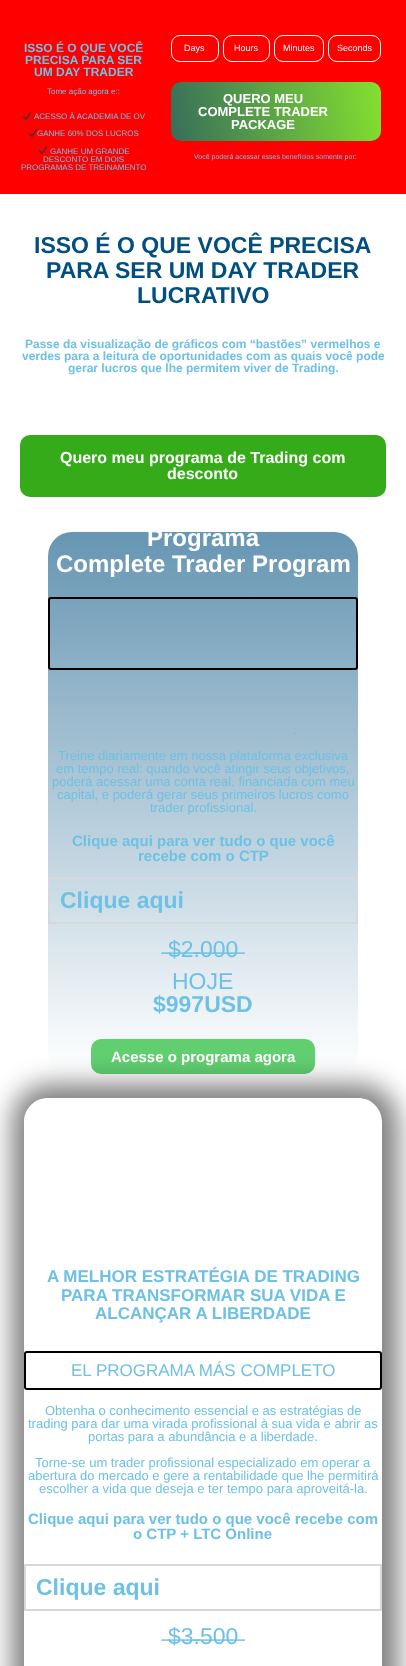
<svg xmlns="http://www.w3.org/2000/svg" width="406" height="1666">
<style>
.a{font:bold 12px Liberation Sans;fill:#6ec1e4}
.b{font:8px Liberation Sans;fill:#6ec1e4}
.c{font:9px Liberation Sans;fill:#fff}
.d{font:bold 13px Liberation Sans;fill:#fff}
.e{font:7px Liberation Sans;fill:#6ec1e4}
.f{font:bold 23px Liberation Sans;fill:#004f80}
.g{font:bold 16px Liberation Sans;fill:#fff}
.h{font:bold 24px Liberation Sans;fill:#fff}
.i{font:13px Liberation Sans;fill:#6ec1e4}
.j{font:bold 15px Liberation Sans;fill:#6ec1e4}
.k{font:bold 23px Liberation Sans;fill:#6ec1e4}
.l{font:23px Liberation Sans;fill:#6ec1e4}
.m{font:bold 15px Liberation Sans;fill:#fff}
.n{font:bold 17px Liberation Sans;fill:#6ec1e4}
.o{font:17px Liberation Sans;fill:#6ec1e4}
</style>
<defs>
<linearGradient id="g1" gradientUnits="userSpaceOnUse" x1="383" y1="93" x2="169" y2="130"><stop offset="0" stop-color="#84e02e"/><stop offset="1" stop-color="#376e5b"/></linearGradient>
<linearGradient id="g2" gradientUnits="userSpaceOnUse" x1="203" y1="532" x2="203" y2="1074"><stop offset="0" stop-color="#6696b3"/><stop offset="1" stop-color="#fff"/></linearGradient>
<clipPath id="clip1"><path d="M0 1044h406v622h-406zm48 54h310c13.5 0 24 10.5 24 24v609c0 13.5-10.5 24-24 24h-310c-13.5 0-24-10.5-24-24v-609c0-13.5 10.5-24 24-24z" clip-rule="evenodd"/></clipPath>
</defs>
<rect width="100%" height="100%" fill="#fff"/>
<path fill="#f00" d="M0 0h406v194H0z"/>
<image href="1.png" x="23" y="112" width="8" height="8"/>
<image href="1.png" x="29" y="129" width="8" height="8"/>
<image href="1.png" x="39" y="146" width="8" height="8"/>
<rect fill="none" stroke="#fff" x="171.5" y="35.5" width="47" height="26" rx="8.5"/>
<rect fill="none" stroke="#fff" x="223.5" y="35.5" width="46" height="26" rx="8.5"/>
<rect fill="none" stroke="#fff" x="274.5" y="35.5" width="49" height="26" rx="8.5"/>
<rect fill="none" stroke="#fff" x="328.5" y="35.5" width="52" height="26" rx="8.5"/>
<rect fill="url(#g1)" x="171" y="82" width="210" height="59" rx="10"/>
<rect fill="#36ab19" x="20" y="435" width="366" height="62" rx="10"/>
<rect fill="url(#g2)" x="48" y="532" width="310" height="542" rx="24"/>
<rect fill="none" stroke="#000" stroke-width="2" x="49" y="598" width="308" height="71" rx="2"/>
<path fill="none" stroke="#d5d8dc" stroke-width="2" d="M49 878h308v45H49z"/>
<rect fill="#61ce70" x="91" y="1039" width="224" height="35" rx="10"/>
<g clip-path="url(#clip1)">
<rect fill="#00000080" filter="blur(13px)" x="12" y="1084" width="386" height="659" rx="38"/>
</g>
<rect fill="none" stroke="#000" stroke-width="2" x="25" y="1352" width="356" height="37" rx="2"/>
<path fill="none" stroke="#d5d8dc" stroke-width="2" d="M25 1565h356v45H25z"/>
<text class="a" x="24" y="52">ISSO É O QUE VOCÊ</text>
<text class="a" x="25" y="64">PRECISA PARA SER</text>
<text class="a" x="34" y="76">UM DAY TRADER</text>
<text class="b" x="47" y="94">Tome ação agora e::</text>
<text class="b" x="34" y="119">ACESSO À ACADEMIA DE OV</text>
<text class="b" x="37" y="136">GANHE 60% DOS LUCROS</text>
<text class="b" x="50" y="154">GANHE UM GRANDE</text>
<text class="b" x="43" y="162">DESCONTO EM DOIS</text>
<text class="b" x="21" y="170">PROGRAMAS DE TREINAMENTO</text>
<text class="c" x="184" y="51">Days</text>
<text class="c" x="234" y="51">Hours</text>
<text class="c" x="283" y="51">Minutes</text>
<text class="c" x="337" y="51">Seconds</text>
<text class="d" x="223" y="103">QUERO MEU</text>
<text class="d" x="198" y="116">COMPLETE TRADER</text>
<text class="d" x="231" y="129">PACKAGE</text>
<text class="e" x="194" y="159">Você poderá acessar esses benefícios somente por:</text>
<text class="f" x="34" y="253">ISSO É O QUE VOCÊ PRECISA</text>
<text class="f" x="46" y="278">PARA SER UM DAY TRADER</text>
<text class="f" x="137" y="303">LUCRATIVO</text>
<text class="a" x="25" y="348">Passe da visualização de gráficos com “bastões” vermelhos e</text>
<text class="a" x="22" y="360">verdes para a leitura de oportunidades com as quais você pode</text>
<text class="a" x="68" y="372">gerar lucros que lhe permitem viver de Trading.</text>
<text class="g" x="60" y="463">Quero meu programa de Trading com</text>
<text class="g" x="167" y="479">desconto</text>
<text class="h" x="147" y="546">Programa</text>
<text class="h" x="56" y="572">Complete Trader Program</text>
<text class="i" x="293" y="734">.</text>
<text class="i" x="58" y="760">Treine diariamente em nossa plataforma exclusiva</text>
<text class="i" x="56" y="773">em tempo real: quando você atingir seus objetivos,</text>
<text class="i" x="52" y="786">poderá acessar uma conta real, financiada com meu</text>
<text class="i" x="57" y="799">capital, e poderá gerar seus primeiros lucros como</text>
<text class="i" x="150" y="812">trader profissional.</text>
<text class="j" x="72" y="846">Clique aqui para ver tudo o que você</text>
<text class="j" x="138" y="861">recebe com o CTP</text>
<text class="k" x="60" y="908">Clique aqui</text>
<text class="l" x="168" y="957">̶$̶2̶.̶0̶0̶0̶</text>
<text class="l" x="172" y="989">HOJE</text>
<text class="k" x="153" y="1012">$997USD</text>
<text class="m" x="111" y="1062">Acesse o programa agora</text>
<text class="n" x="47" y="1282">A MELHOR ESTRATÉGIA DE TRADING</text>
<text class="n" x="61" y="1301">PARA TRANSFORMAR SUA VIDA E</text>
<text class="n" x="95" y="1319">ALCANÇAR A LIBERDADE</text>
<text class="o" x="71" y="1376">EL PROGRAMA MÁS COMPLETO</text>
<text class="i" x="45" y="1415">Obtenha o conhecimento essencial e as estratégias de</text>
<text class="i" x="28" y="1428">trading para dar uma virada profissional à sua vida e abrir as</text>
<text class="i" x="88" y="1441">portas para a abundância e a liberdade.</text>
<text class="i" x="35" y="1467">Torne-se um trader profissional especializado em operar a</text>
<text class="i" x="28" y="1480">abertura do mercado e gere a rentabilidade que lhe permitirá</text>
<text class="i" x="39" y="1493">escolher a vida que deseja e ter tempo para aproveitá-la.</text>
<text class="j" x="28" y="1524">Clique aqui para ver tudo o que você recebe com</text>
<text class="j" x="133" y="1539">o CTP + LTC Online</text>
<text class="k" x="36" y="1595">Clique aqui</text>
<text class="l" x="168" y="1644">̶$̶3̶.̶5̶0̶0̶</text>
</svg>
